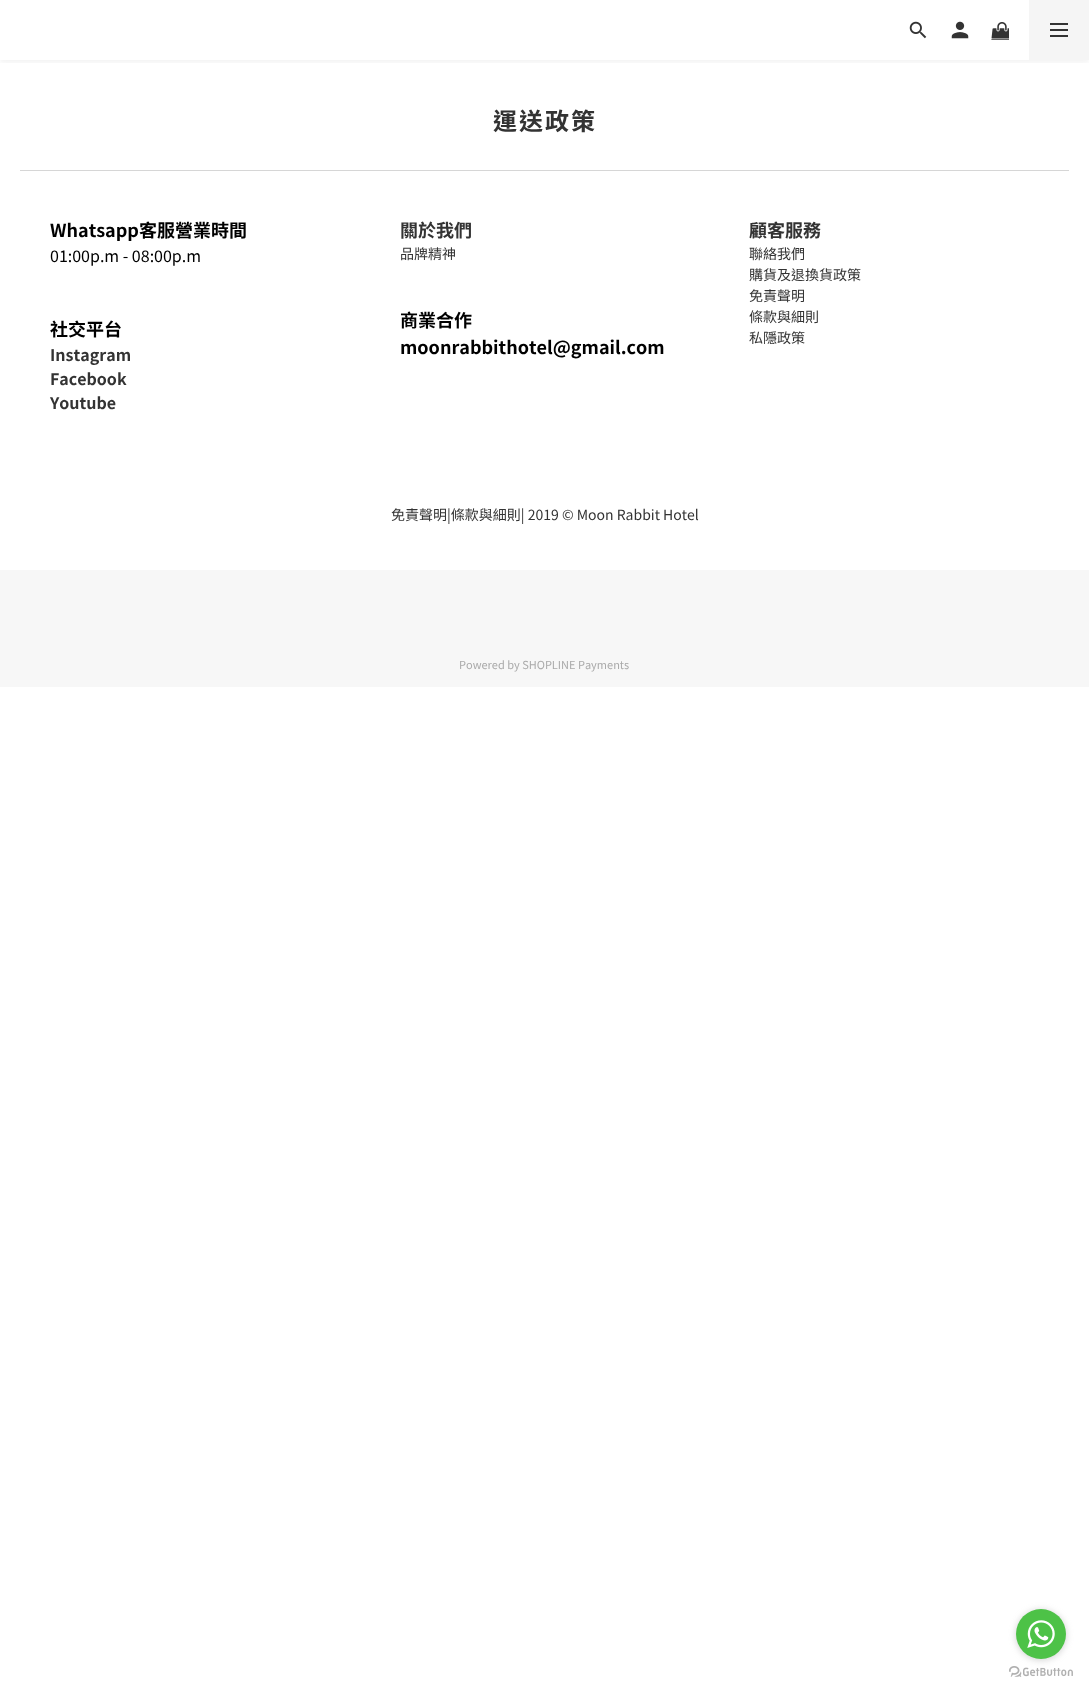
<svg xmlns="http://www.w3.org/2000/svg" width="1089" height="1692">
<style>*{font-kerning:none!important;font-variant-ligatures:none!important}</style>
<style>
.a{font:bold 24px Noto Sans TC;letter-spacing:2px;fill:#333}
.b{font:bold 18px Noto Sans TC;fill:#000}
.c{font:16px Noto Sans TC;fill:#000}
.d{font:bold 16px Noto Sans TC;fill:#333}
.e{font:bold 18px Noto Sans TC;fill:#333}
.f{font:14px Noto Sans TC;fill:#333}
.g{font:11px Noto Sans TC;fill:#aaa}
</style>
<defs>
<clipPath id="clip1"><path d="M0 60h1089v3H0z"/></clipPath>
</defs>
<rect width="100%" height="100%" fill="#fff"/>
<g clip-path="url(#clip1)">
<path fill="#0000000f" filter="blur(3px)" d="M0 2h1089v60H0z"/>
</g>
<image href="1.png" x="909" y="21" width="18" height="18"/>
<image href="2.png" x="951" y="21" width="18" height="18"/>
<image href="3.png" x="991" y="22" width="18" height="18"/>
<path fill="#f5f5f5" d="M1029 0h60v60H1029z"/>
<path fill="#333" d="M1050 29h18v2H1050z"/>
<path fill="#333" d="M1050 23h18v2H1050z"/>
<path fill="#333" d="M1050 35h18v2H1050z"/>
<path fill="#d6d6d6" d="M20 170h1049v1H20z"/>
<path fill="#f7f7f7" d="M0 570h1089v117H0z"/>
<image href="5.png" x="1009" y="1666" width="64" height="11"/>
<rect fill="#88888866" filter="blur(3.5px)" x="1016" y="1610" width="50" height="50" rx="25"/>
<circle fill="#4dc247" cx="1041" cy="1634" r="25"/>
<image href="4.png" x="1027" y="1620" width="28" height="28"/>
<text class="a" x="493" y="130">運送政策</text>
<text class="b" x="50" y="237">Whatsapp客服營業時間</text>
<text class="c" x="50" y="262">01:00p.m - 08:00p.m</text>
<text class="b" x="50" y="336">社交平台</text>
<text class="d" x="50" y="361">Instagram</text>
<text class="d" x="50" y="385">Facebook</text>
<text class="d" x="50" y="409">Youtube</text>
<text class="e" x="400" y="237">關於我們</text>
<text class="f" x="400" y="259">品牌精神</text>
<text class="b" x="400" y="327">商業合作</text>
<text class="b" x="400" y="354">moonrabbithotel@gmail.com</text>
<text class="e" x="749" y="237">顧客服務</text>
<text class="f" x="749" y="259">聯絡我們</text>
<text class="f" x="749" y="280">購貨及退換貨政策</text>
<text class="f" x="749" y="301">免責聲明</text>
<text class="f" x="749" y="322">條款與細則</text>
<text class="f" x="749" y="343">私隱政策</text>
<text class="f" x="391" y="520">免責聲明|條款與細則| 2019 © Moon Rabbit Hotel</text>
<text class="g" x="459" y="669">Powered by SHOPLINE Payments</text>
</svg>
